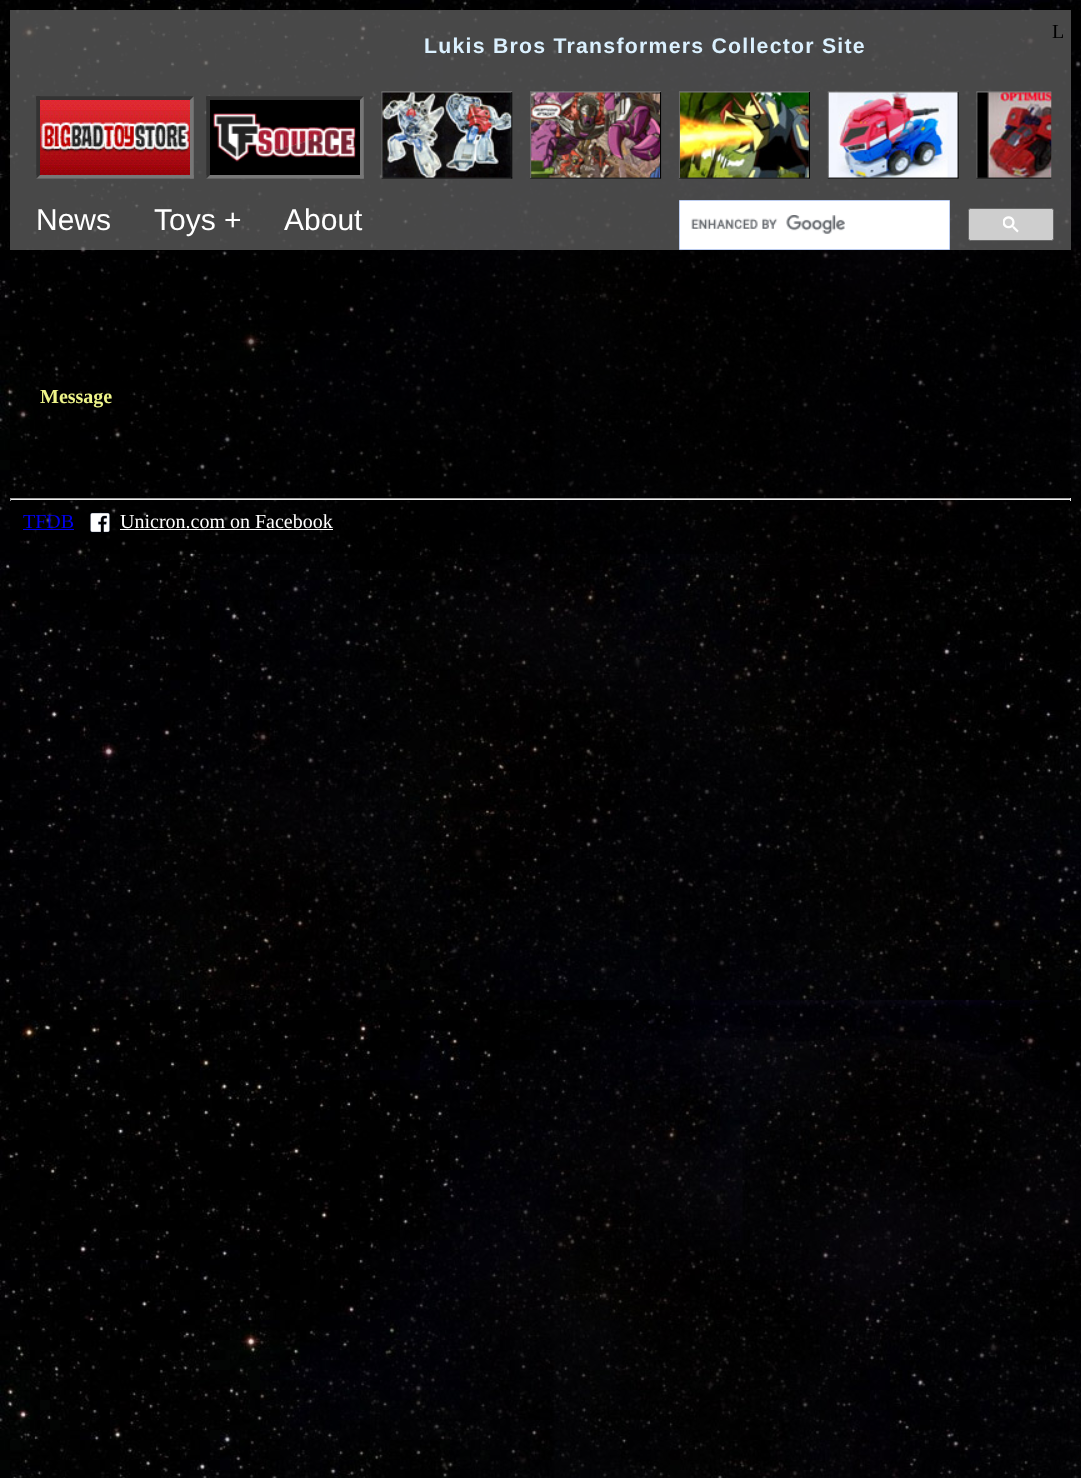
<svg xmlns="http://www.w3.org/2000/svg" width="1081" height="1478">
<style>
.a{font:20px Liberation Serif;fill:#000}
.b{font:bold 21.25px Liberation Sans;letter-spacing:1.25px;fill:#dbf1ff}
.c{font:30px Liberation Sans;fill:#fff}
.d{font:bold 20px Liberation Serif;fill:#eef489}
.e{font:20px Liberation Serif;fill:#00e}
.f{font:20px Liberation Serif;fill:#fff}
</style>
<rect width="100%" height="100%" fill="#fff"/>
<image href="1.png" x="0" y="0" width="1081" height="1478"/>
<path fill="#00000073" d="M10 10h1061v544H10z"/>
<path fill="#78787899" d="M10 10h1061v240H10z"/>
<image href="2.png" x="36" y="91" width="1016" height="88"/>
<path fill="#fff" stroke="#bccdf0" d="M679.5 200.5h270v49H679.5z"/>
<image href="3.png" x="691" y="215" width="154" height="19"/>
<rect fill="#cecece" stroke="#666" x="968.5" y="208.5" width="85" height="32" rx="2"/>
<image href="4.png" x="1003" y="216" width="16" height="17"/>
<path fill="#9f9f9f" d="M10 498h1061v1H10z"/>
<path fill="#eee" d="M1070 498h1v3H1070z"/>
<path fill="#eee" d="M10 499h1061v1H10z"/>
<path fill="#9f9f9f" d="M10 498h1v3H10z"/>
<path fill="#00e" d="M23 529h51v1H23z"/>
<image href="5.png" x="90" y="512" width="20" height="21"/>
<path fill="#fff" d="M120 529h213v1H120z"/>
<text class="a" x="1052" y="38">L</text>
<text class="b" x="424" y="53">Lukis Bros Transformers Collector Site</text>
<text class="c" x="36" y="230">News</text>
<text class="c" x="154" y="230">Toys +</text>
<text class="c" x="284" y="230">About</text>
<text class="d" x="40" y="403">Message</text>
<text class="e" x="23" y="528">TFDB</text>
<text class="f" x="120" y="528">Unicron.com on Facebook</text>
</svg>
